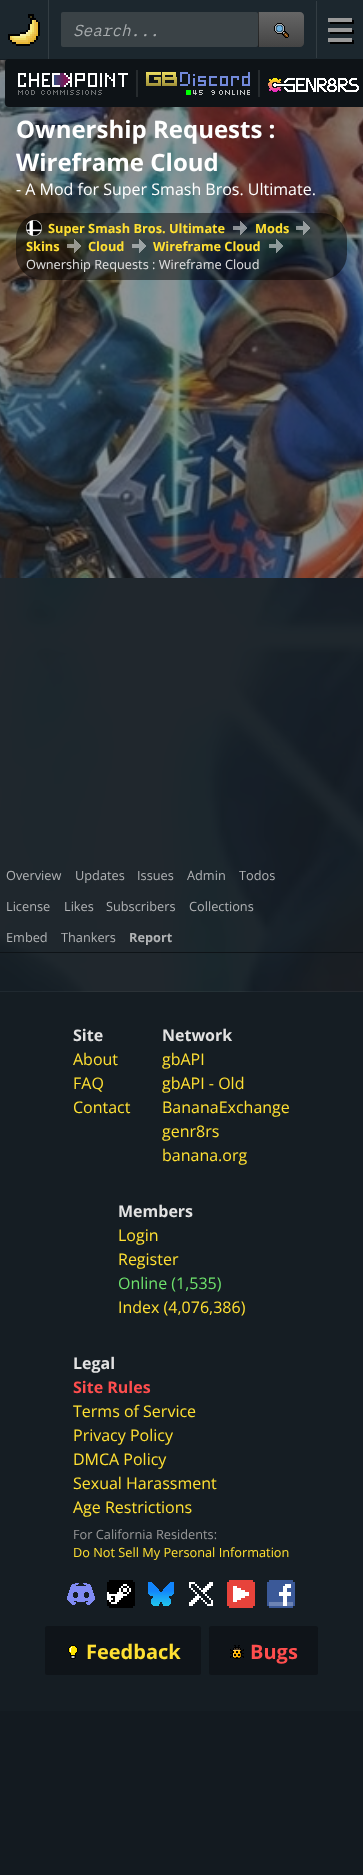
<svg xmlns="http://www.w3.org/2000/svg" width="363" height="1875">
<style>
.a{font:italic 16px IBM Plex Mono;fill:#a6aaac}
.b{font:bold 24px Open Sans;fill:#fff}
.c{font:16px Open Sans;fill:#fff}
.d{font:bold 12.75px Open Sans;fill:#ffe033}
.e{font:12.75px Open Sans;fill:#e2e2e2}
.f{font:12.75px Open Sans;fill:#b1b3b5}
.g{font:bold 12.75px Open Sans;fill:#b1b3b5}
.h{font:bold 16px Open Sans;fill:#e2e2e2}
.i{font:16px Open Sans;fill:#ffe033}
.j{font:16px Open Sans;fill:#6ee16c}
.k{font:bold 16px Open Sans;fill:#ff4e4e}
.l{font:12.75px Open Sans;fill:#999}
.m{font:12.75px Open Sans;fill:#ffe033}
.n{font:bold 20px Open Sans;fill:#ffe033}
.o{font:bold 20px Open Sans;fill:#ff4e4e}
</style>
<defs>
<linearGradient id="g1" gradientUnits="userSpaceOnUse" x1="282" y1="12" x2="282" y2="47"><stop offset="0" stop-color="#666"/><stop offset="1" stop-color="#444"/></linearGradient>
<linearGradient id="g2" gradientUnits="userSpaceOnUse" x1="282" y1="12" x2="282" y2="47"><stop offset="0" stop-color="#333"/><stop offset="1" stop-color="#222"/></linearGradient>
</defs>
<rect width="100%" height="100%" fill="#131a20"/>
<path fill="#1c272e" d="M0 0h363v59H0z"/>
<path fill="#151d23" d="M0 59h9v1H0z"/>
<image href="1.png" x="8" y="14" width="32" height="32"/>
<path fill="#333d43" d="M48 0h1v59H48z"/>
<rect fill="#3a4246" x="61" y="12" width="197" height="35" rx="2"/>
<path fill="url(#g1)" d="M258 12h42c2 0 4 2 4 4v27c0 2-2 4-4 4h-42z"/>
<path fill="url(#g2)" d="M258 12h1v35H258z"/>
<image href="2.png" x="274" y="23" width="15" height="15"/>
<path fill="#333d43" d="M316 1h1v57H316z"/>
<image href="3.png" x="328" y="18" width="26" height="26"/>
<path fill="#151d23" d="M0 60h363v1651H0z"/>
<image href="4.png" x="0" y="60" width="363" height="932"/>
<image href="5.png" x="0" y="60" width="363" height="518"/>
<rect fill="#00000080" x="16" y="213" width="331" height="67" rx="26"/>
<image href="6.png" x="26" y="220" width="16" height="16"/>
<image href="7.png" x="233" y="221" width="14" height="14"/>
<image href="8.png" x="296" y="221" width="14" height="14"/>
<image href="9.png" x="67" y="239" width="14" height="14"/>
<image href="10.png" x="132" y="239" width="14" height="14"/>
<image href="11.png" x="269" y="239" width="14" height="14"/>
<path fill="#0e1317" d="M0 952h363v1H0z"/>
<path fill="#ffffff0d" d="M0 991h363v1H0z"/>
<image href="12.png" x="67" y="1583" width="28" height="22"/>
<image href="13.png" x="107" y="1580" width="28" height="28"/>
<image href="14.png" x="148" y="1582" width="26" height="24"/>
<image href="15.png" x="189" y="1582" width="24" height="24"/>
<image href="16.png" x="227" y="1580" width="28" height="28"/>
<image href="17.png" x="267" y="1580" width="28" height="28"/>
<rect fill="#0f1419" x="45" y="1626" width="156" height="49" rx="2.5"/>
<image href="18.png" x="68" y="1645" width="10" height="14"/>
<rect fill="#0f1419" x="209" y="1626" width="109" height="49" rx="2.5"/>
<image href="19.png" x="230" y="1645" width="14" height="14"/>
<rect fill="#0e1317" x="5" y="59" width="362" height="48" rx="4"/>
<image href="20.png" x="18" y="73" width="110" height="22"/>
<path fill="#262b2e" d="M136 70h2v27H136z"/>
<image href="21.png" x="146" y="72" width="104" height="14"/>
<path fill="#00ff03" d="M186 90h5v5H186z"/>
<image href="22.png" x="193" y="90" width="4" height="5"/>
<image href="23.png" x="199" y="90" width="4" height="5"/>
<image href="24.png" x="211" y="90" width="4" height="5"/>
<image href="25.png" x="219" y="90" width="31" height="5"/>
<path fill="#262b2e" d="M258 70h2v27H258z"/>
<image href="26.png" x="268" y="78" width="91" height="14"/>
<text class="a" x="73" y="36">Search...</text>
<text class="b" x="16" y="138">Ownership Requests :</text>
<text class="b" x="16" y="171">Wireframe Cloud</text>
<text class="c" x="16" y="195">- A Mod for Super Smash Bros. Ultimate.</text>
<text class="d" x="48" y="233">Super Smash Bros. Ultimate</text>
<text class="d" x="255" y="233">Mods</text>
<text class="d" x="26" y="251">Skins</text>
<text class="d" x="88" y="251">Cloud</text>
<text class="d" x="153" y="251">Wireframe Cloud</text>
<text class="e" x="26" y="269">Ownership Requests : Wireframe Cloud</text>
<text class="f" x="6" y="880">Overview</text>
<text class="f" x="75" y="880">Updates</text>
<text class="f" x="137" y="880">Issues</text>
<text class="f" x="187" y="880">Admin</text>
<text class="f" x="239" y="880">Todos</text>
<text class="f" x="6" y="911">License</text>
<text class="f" x="64" y="911">Likes</text>
<text class="f" x="106" y="911">Subscribers</text>
<text class="f" x="189" y="911">Collections</text>
<text class="f" x="6" y="942">Embed</text>
<text class="f" x="61" y="942">Thankers</text>
<text class="g" x="129" y="942">Report</text>
<text class="h" x="73" y="1041">Site</text>
<text class="i" x="73" y="1065">About</text>
<text class="i" x="73" y="1089">FAQ</text>
<text class="i" x="73" y="1113">Contact</text>
<text class="h" x="162" y="1041">Network</text>
<text class="i" x="162" y="1065">gbAPI</text>
<text class="i" x="162" y="1089">gbAPI - Old</text>
<text class="i" x="162" y="1113">BananaExchange</text>
<text class="i" x="162" y="1137">genr8rs</text>
<text class="i" x="162" y="1161">banana.org</text>
<text class="h" x="118" y="1217">Members</text>
<text class="i" x="118" y="1241">Login</text>
<text class="i" x="118" y="1265">Register</text>
<text class="j" x="118" y="1289">Online (1,535)</text>
<text class="i" x="118" y="1313">Index (4,076,386)</text>
<text class="h" x="73" y="1369">Legal</text>
<text class="k" x="73" y="1393">Site Rules</text>
<text class="i" x="73" y="1417">Terms of Service</text>
<text class="i" x="73" y="1441">Privacy Policy</text>
<text class="i" x="73" y="1465">DMCA Policy</text>
<text class="i" x="73" y="1489">Sexual Harassment</text>
<text class="i" x="73" y="1513">Age Restrictions</text>
<text class="l" x="73" y="1539">For California Residents:</text>
<text class="m" x="73" y="1557">Do Not Sell My Personal Information</text>
<text class="n" x="86" y="1659">Feedback</text>
<text class="o" x="250" y="1659">Bugs</text>
</svg>
